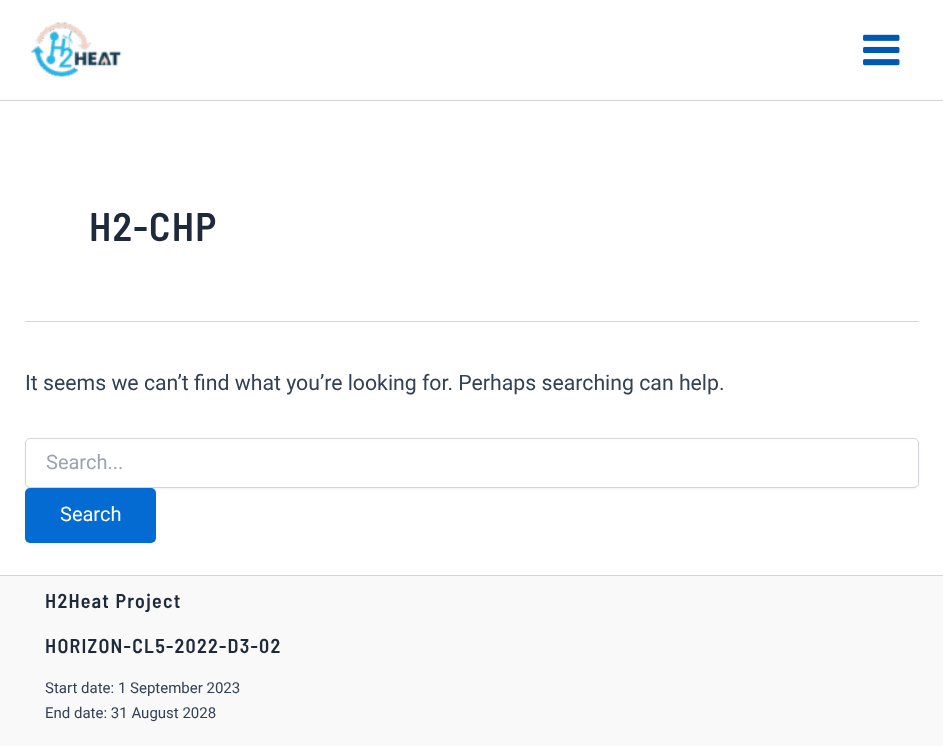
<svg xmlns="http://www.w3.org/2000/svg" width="943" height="746">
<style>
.a{font:600 40px Barlow Semi Condensed;letter-spacing:1.25px;fill:#1e293b}
.b{font:21.25px Roboto;fill:#334155}
.c{font:20px Roboto;fill:#9ca3af}
.d{font:20px Roboto;fill:#fff}
.e{font:600 20px Barlow Semi Condensed;letter-spacing:1.25px;fill:#1e293b}
.f{font:15px Roboto;fill:#334155}
</style>
<rect width="100%" height="100%" fill="#fff"/>
<path fill="#d1d5db" d="M0 100h943v1H0z"/>
<image href="1.png" x="30" y="22" width="92" height="56"/>
<image href="2.png" x="863" y="34" width="37" height="32"/>
<path fill="#d1d5db" d="M25 321h894v1H25z"/>
<rect fill="#0000000d" filter="blur(1px)" x="25" y="439" width="894" height="50" rx="5"/>
<rect fill="#fff" stroke="#d1d5db" x="25.5" y="438.5" width="893" height="49" rx="4.5"/>
<rect fill="#0000000d" filter="blur(1px)" x="25" y="489" width="131" height="55" rx="5"/>
<rect fill="#046bd2" x="25" y="488" width="131" height="55" rx="5"/>
<path fill="#f9f9f9" d="M0 576h943v170H0z"/>
<path fill="#d1d5db" d="M0 575h943v1H0z"/>
<text class="a" x="89" y="241">H2-CHP</text>
<text class="b" x="25" y="390">It seems we can’t find what you’re looking for. Perhaps searching can help.</text>
<text class="c" x="46" y="469">Search...</text>
<text class="d" x="60" y="521">Search</text>
<text class="e" x="45" y="608">H2Heat Project</text>
<text class="e" x="45" y="653">HORIZON-CL5-2022-D3-02</text>
<text class="f" x="45" y="693">Start date: 1 September 2023</text>
<text class="f" x="45" y="718">End date: 31 August 2028</text>
</svg>
